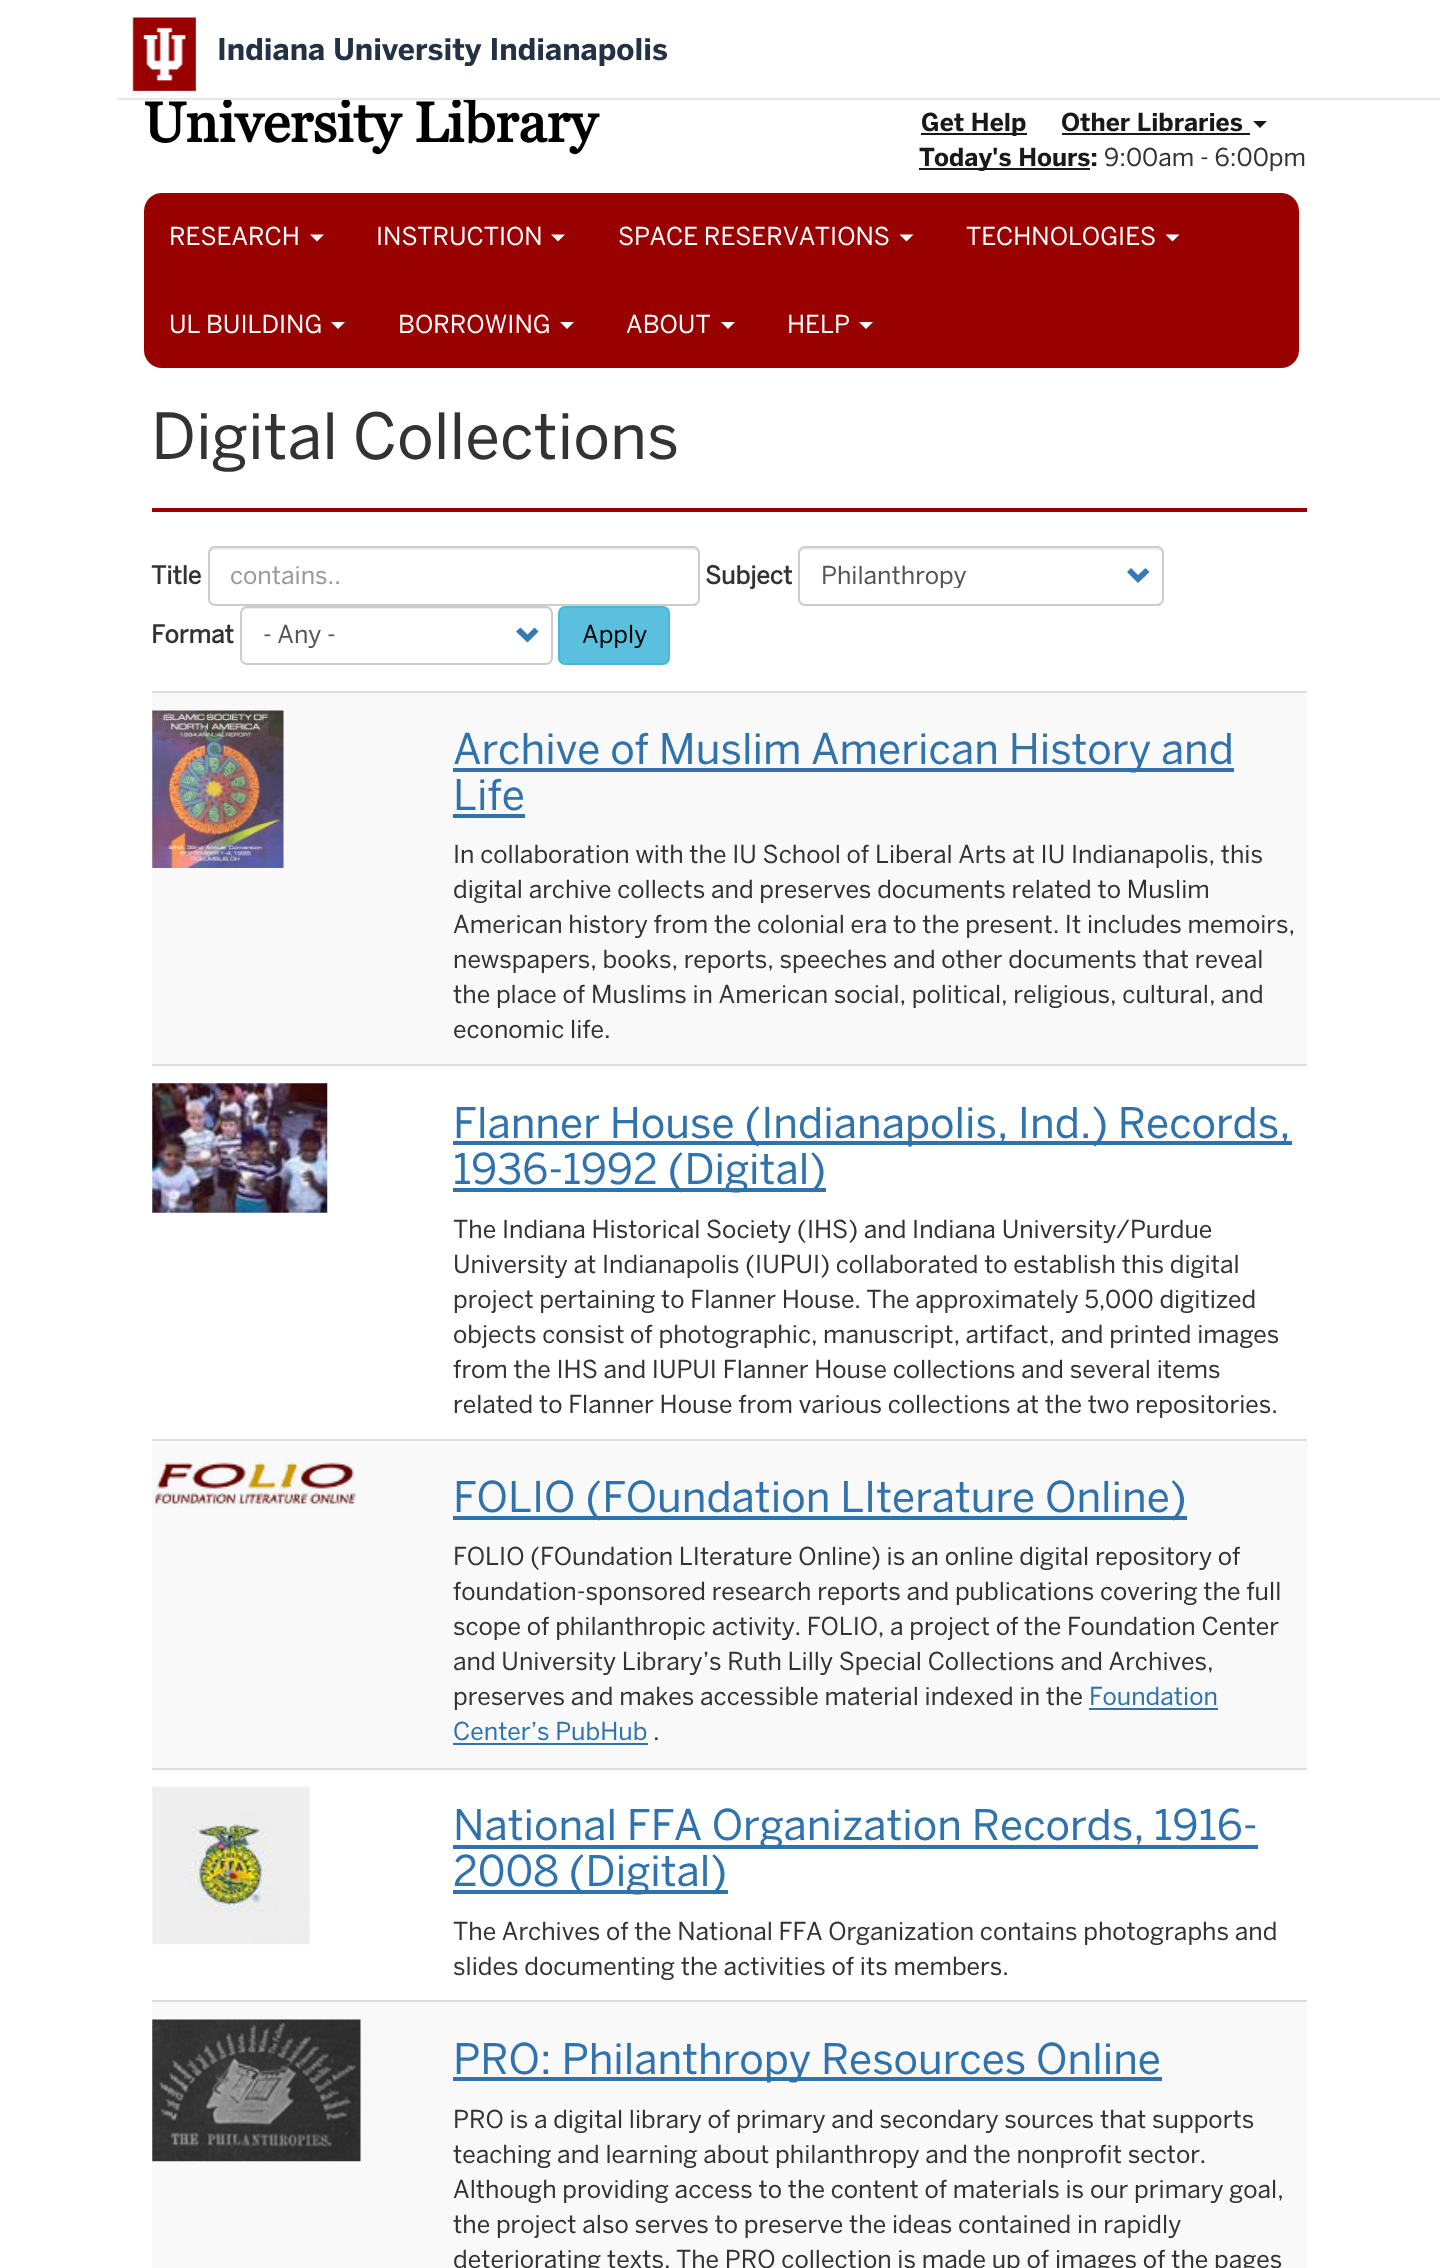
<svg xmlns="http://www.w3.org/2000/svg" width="1440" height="2268">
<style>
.a{font:bold 29.75px 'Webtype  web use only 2';fill:#243142}
.b{font:bold 56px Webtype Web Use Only;fill:#000}
.c{font:bold 24.5px 'Webtype  web use only 2';fill:#191919}
.d{font:24.5px 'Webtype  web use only';fill:#333}
.e{font:24.5px 'Webtype  web use only';fill:#fff}
.f{font:63px 'Webtype  web use only';fill:#333}
.g{font:bold 24.5px 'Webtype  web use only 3';fill:#333}
.h{font:24.5px 'Webtype  web use only';fill:#999}
.i{font:24.5px 'Webtype  web use only';fill:#555}
.j{font:24.5px 'Webtype  web use only';fill:#000}
.k{font:42px 'Webtype  web use only';fill:#3072ab}
.l{font:24.5px 'Webtype  web use only';fill:#3072ab}
</style>
<defs>
<clipPath id="clip1"><path d="M821 564h292v24H821z"/></clipPath>
</defs>
<rect width="100%" height="100%" fill="#fff"/>
<image href="1.png" x="132" y="17" width="64" height="74"/>
<path fill="#191919" d="M921 133h106v2H921z"/>
<path fill="#191919" d="M1062 133h188v2H1062z"/>
<path fill="#191919" d="M1253 121h14l-7 7z"/>
<path fill="#191919" d="M919 168h171v2H919z"/>
<rect fill="#900" x="144" y="193" width="1155" height="175" rx="18"/>
<path fill="#fff" d="M310 234.5h14l-7 7z"/>
<path fill="#fff" d="M551 234.5h14l-7 7z"/>
<path fill="#fff" d="M899.5 234.5h14l-7 7z"/>
<path fill="#fff" d="M1165.5 234.5h14l-7 7z"/>
<path fill="#fff" d="M331 322h14l-7 7z"/>
<path fill="#fff" d="M560 322h14l-7 7z"/>
<path fill="#fff" d="M721 322h14l-7 7z"/>
<path fill="#fff" d="M859 322h14l-7 7z"/>
<path fill="#900" d="M152 508h1155v4H152z"/>
<path fill="#ececec" d="M215 550h478c3 0 5 2 5 5v-2c0-3-2-5-5-5h-478c-3 0-5 2-5 5v2c0-3 2-5 5-5z"/>
<rect fill="none" stroke="#ccc" stroke-width="2" x="209" y="547" width="490" height="58" rx="6"/>
<path fill="#ececec" d="M805 550h352c3 0 5 2 5 5c0-3-1-7-5-7h-352c-4 0-5 4-5 7c0-3 2-5 5-5z"/>
<rect fill="none" stroke="#ccc" stroke-width="2" x="799" y="547" width="364" height="58" rx="6"/>
<path fill="#337ab7" d="M1149.5 572l-11.5 11l-11-11l4-4l7 7l7.5-7z"/>
<path fill="#ececec" d="M247 609h299c3 0 5 2 5 5v-2c0-3-2-5-5-5h-299c-3 0-5 2-5 5v2c0-3 2-5 5-5z"/>
<rect fill="none" stroke="#ccc" stroke-width="2" x="241" y="607" width="311" height="57" rx="6"/>
<path fill="#337ab7" d="M538.5 631.5l-11 11l-11.5-11l4.5-4l7 7l7-7z"/>
<rect fill="#5bc0de" stroke="#46b8da" stroke-width="2" x="559" y="607" width="110" height="57" rx="6"/>
<path fill="#f9f9f9" d="M152 693h1155v371H152z"/>
<path fill="#ddd" d="M152 691h1155v2H152z"/>
<path fill="#ddd" d="M152 1064h1155v2H152z"/>
<image href="2.png" x="152" y="710" width="132" height="158"/>
<path fill="#3072ab" d="M453 768h781v4H453z"/>
<path fill="#3072ab" d="M453 814h72v4H453z"/>
<image href="3.png" x="152" y="1083" width="176" height="130"/>
<path fill="#3072ab" d="M453 1141h839v4H453z"/>
<path fill="#3072ab" d="M453 1188h373v4H453z"/>
<path fill="#f9f9f9" d="M152 1441h1155v327H152z"/>
<path fill="#ddd" d="M152 1439h1155v2H152z"/>
<path fill="#ddd" d="M152 1768h1155v2H152z"/>
<image href="4.png" x="153" y="1458" width="203" height="50"/>
<path fill="#3072ab" d="M453 1516h734v4H453z"/>
<path fill="#3072ab" d="M1089 1708h129v2H1089z"/>
<path fill="#3072ab" d="M453 1743h195v2H453z"/>
<image href="5.png" x="152" y="1786" width="158" height="159"/>
<path fill="#3072ab" d="M453 1845h805v4H453z"/>
<path fill="#3072ab" d="M453 1890h275v4H453z"/>
<path fill="#f9f9f9" d="M152 2002h1155v266H152z"/>
<path fill="#ddd" d="M152 2000h1155v2H152z"/>
<image href="6.png" x="152" y="2019" width="209" height="143"/>
<path fill="#3072ab" d="M453 2077h709v4H453z"/>
<text class="a" x="217" y="60">Indiana University Indianapolis</text>
<text class="b" x="143" y="142">University Library</text>
<path fill="#e2e7e9" d="M117 98h1323v2H117z"/>
<text class="c" x="921" y="131">Get Help</text>
<text class="c" x="1061" y="131">Other Libraries</text>
<text class="c" x="919" y="166">Today's Hours:</text>
<text class="d" x="1104" y="166">9:00am - 6:00pm</text>
<text class="e" x="169" y="245">RESEARCH</text>
<text class="e" x="376" y="245">INSTRUCTION</text>
<text class="e" x="618" y="245">SPACE RESERVATIONS</text>
<text class="e" x="966" y="245">TECHNOLOGIES</text>
<text class="e" x="169" y="333">UL BUILDING</text>
<text class="e" x="398" y="333">BORROWING</text>
<text class="e" x="626" y="333">ABOUT</text>
<text class="e" x="787" y="333">HELP</text>
<text class="f" x="151" y="459">Digital Collections</text>
<text class="g" x="151" y="584">Title</text>
<text class="h" x="230" y="584">contains..</text>
<text class="g" x="705" y="584">Subject</text>
<g clip-path="url(#clip1)">
<text class="i" x="821" y="584">Philanthropy</text>
</g>
<text class="g" x="151" y="643">Format</text>
<text class="i" x="263" y="643">- Any -</text>
<text class="j" x="582" y="643">Apply</text>
<text class="k" x="453" y="764">Archive of Muslim American History and</text>
<text class="k" x="453" y="810">Life</text>
<text class="d" x="453" y="863">In collaboration with the IU School of Liberal Arts at IU Indianapolis, this</text>
<text class="d" x="453" y="898">digital archive collects and preserves documents related to Muslim</text>
<text class="d" x="453" y="933">American history from the colonial era to the present. It includes memoirs,</text>
<text class="d" x="453" y="968">newspapers, books, reports, speeches and other documents that reveal</text>
<text class="d" x="453" y="1003">the place of Muslims in American social, political, religious, cultural, and</text>
<text class="d" x="453" y="1038">economic life.</text>
<text class="k" x="453" y="1138">Flanner House (Indianapolis, Ind.) Records,</text>
<text class="k" x="453" y="1184">1936-1992 (Digital)</text>
<text class="d" x="453" y="1238">The Indiana Historical Society (IHS) and Indiana University/Purdue</text>
<text class="d" x="453" y="1273">University at Indianapolis (IUPUI) collaborated to establish this digital</text>
<text class="d" x="453" y="1308">project pertaining to Flanner House. The approximately 5,000 digitized</text>
<text class="d" x="453" y="1343">objects consist of photographic, manuscript, artifact, and printed images</text>
<text class="d" x="453" y="1378">from the IHS and IUPUI Flanner House collections and several items</text>
<text class="d" x="453" y="1413">related to Flanner House from various collections at the two repositories.</text>
<text class="k" x="453" y="1512">FOLIO (FOundation LIterature Online)</text>
<text class="d" x="453" y="1565">FOLIO (FOundation LIterature Online) is an online digital repository of</text>
<text class="d" x="453" y="1600">foundation-sponsored research reports and publications covering the full</text>
<text class="d" x="453" y="1635">scope of philanthropic activity. FOLIO, a project of the Foundation Center</text>
<text class="d" x="453" y="1670">and University Library’s Ruth Lilly Special Collections and Archives,</text>
<text class="d" x="453" y="1705">preserves and makes accessible material indexed in the</text>
<text class="l" x="1089" y="1705">Foundation</text>
<text class="l" x="453" y="1740">Center’s PubHub</text>
<text class="d" x="653" y="1740">.</text>
<text class="k" x="453" y="1840">National FFA Organization Records, 1916-</text>
<text class="k" x="453" y="1886">2008 (Digital)</text>
<text class="d" x="453" y="1940">The Archives of the National FFA Organization contains photographs and</text>
<text class="d" x="453" y="1975">slides documenting the activities of its members.</text>
<text class="k" x="453" y="2074">PRO: Philanthropy Resources Online</text>
<text class="d" x="453" y="2128">PRO is a digital library of primary and secondary sources that supports</text>
<text class="d" x="453" y="2163">teaching and learning about philanthropy and the nonprofit sector.</text>
<text class="d" x="453" y="2198">Although providing access to the content of materials is our primary goal,</text>
<text class="d" x="453" y="2233">the project also serves to preserve the ideas contained in rapidly</text>
<text class="d" x="453" y="2268">deteriorating texts. The PRO collection is made up of images of the pages</text>
</svg>
